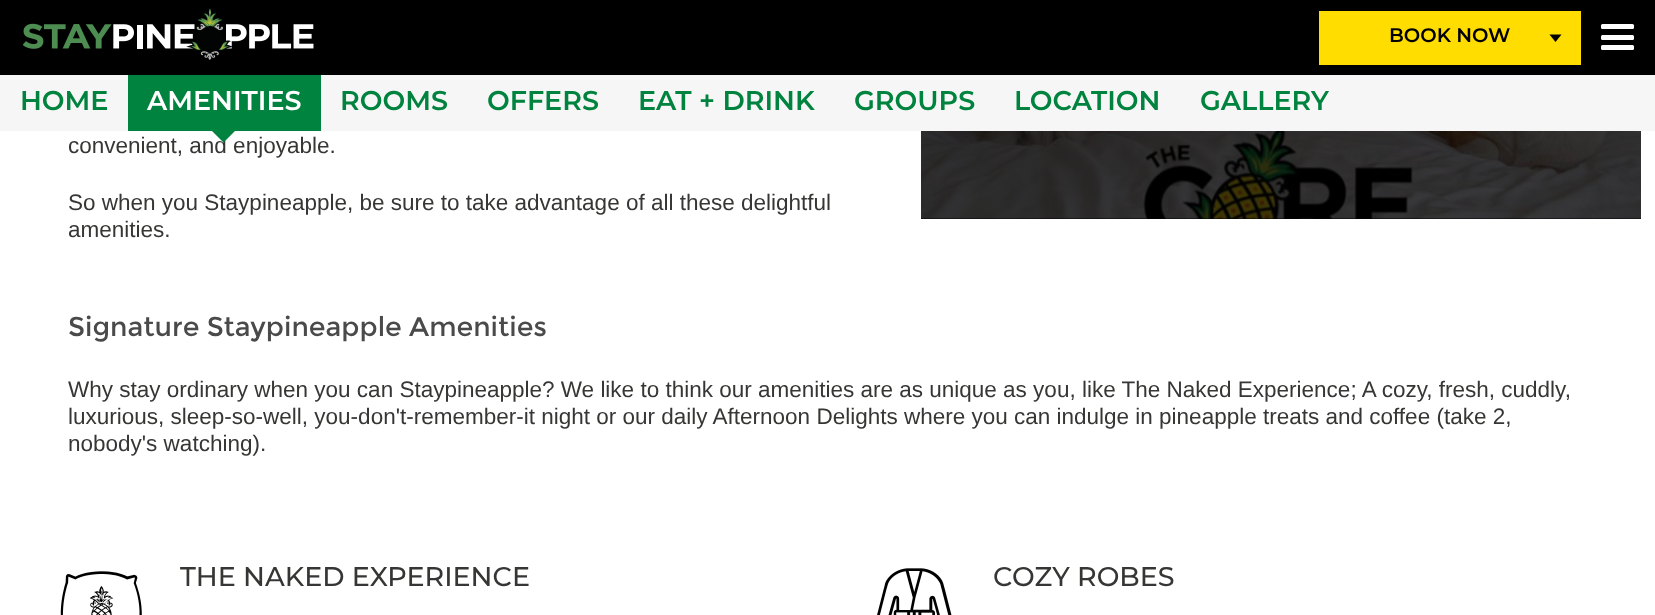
<svg xmlns="http://www.w3.org/2000/svg" width="1655" height="615">
<style>
.a{font:600 19.5px Montserrat;fill:#000}
.b{font:600 27px Montserrat;fill:#00833e}
.c{font:600 27px Montserrat;fill:#fff}
.d{font:22.5px Liberation Sans;fill:#363635}
.e{font:27px Montserrat;fill:#4a4a4a}
.f{font:500 27px Montserrat;fill:#363635}
</style>
<rect width="100%" height="100%" fill="#fff"/>
<path fill="#000" d="M0 0h1655v75H0z"/>
<image href="1.png" x="23" y="8" width="291" height="52"/>
<path fill="#fd0" d="M1319 11h262v54H1319z"/>
<path fill="#000" d="M1549.5 34.5h12l-6 7.5z"/>
<rect fill="#fff" x="1601" y="35" width="33" height="5" rx="1.5"/>
<rect fill="#fff" x="1601" y="24" width="33" height="5" rx="1.5"/>
<rect fill="#fff" x="1601" y="45" width="33" height="5" rx="1.5"/>
<path fill="#f6f6f6" d="M0 75h1655v56H0z"/>
<path fill="#00833e" d="M128 75h193v56H128z"/>
<path fill="#000" d="M921 218h720v1H921z"/>
<image href="2.png" x="921" y="131" width="720" height="88"/>
<image href="3.png" x="60" y="571" width="82" height="44"/>
<image href="4.png" x="877" y="568" width="75" height="47"/>
<text class="a" x="1389" y="42">BOOK NOW</text>
<text class="b" x="20" y="110">HOME</text>
<text class="c" x="147" y="110">AMENITIES</text>
<text class="b" x="340" y="110">ROOMS</text>
<text class="b" x="487" y="110">OFFERS</text>
<text class="b" x="638" y="110">EAT + DRINK</text>
<text class="b" x="854" y="110">GROUPS</text>
<text class="b" x="1014" y="110">LOCATION</text>
<text class="b" x="1200" y="110">GALLERY</text>
<text class="d" x="68" y="153">convenient, and enjoyable.</text>
<path fill="#00833e" d="M211.5 130.5h24l-12 12z"/>
<text class="d" x="68" y="210">So when you Staypineapple, be sure to take advantage of all these delightful</text>
<text class="d" x="68" y="237">amenities.</text>
<text class="e" x="68" y="336">Signature Staypineapple Amenities</text>
<text class="d" x="68" y="397">Why stay ordinary when you can Staypineapple? We like to think our amenities are as unique as you, like The Naked Experience; A cozy, fresh, cuddly,</text>
<text class="d" x="68" y="424">luxurious, sleep-so-well, you-don't-remember-it night or our daily Afternoon Delights where you can indulge in pineapple treats and coffee (take 2,</text>
<text class="d" x="68" y="451">nobody's watching).</text>
<text class="f" x="180" y="586">THE NAKED EXPERIENCE</text>
<text class="f" x="993" y="586">COZY ROBES</text>
</svg>
